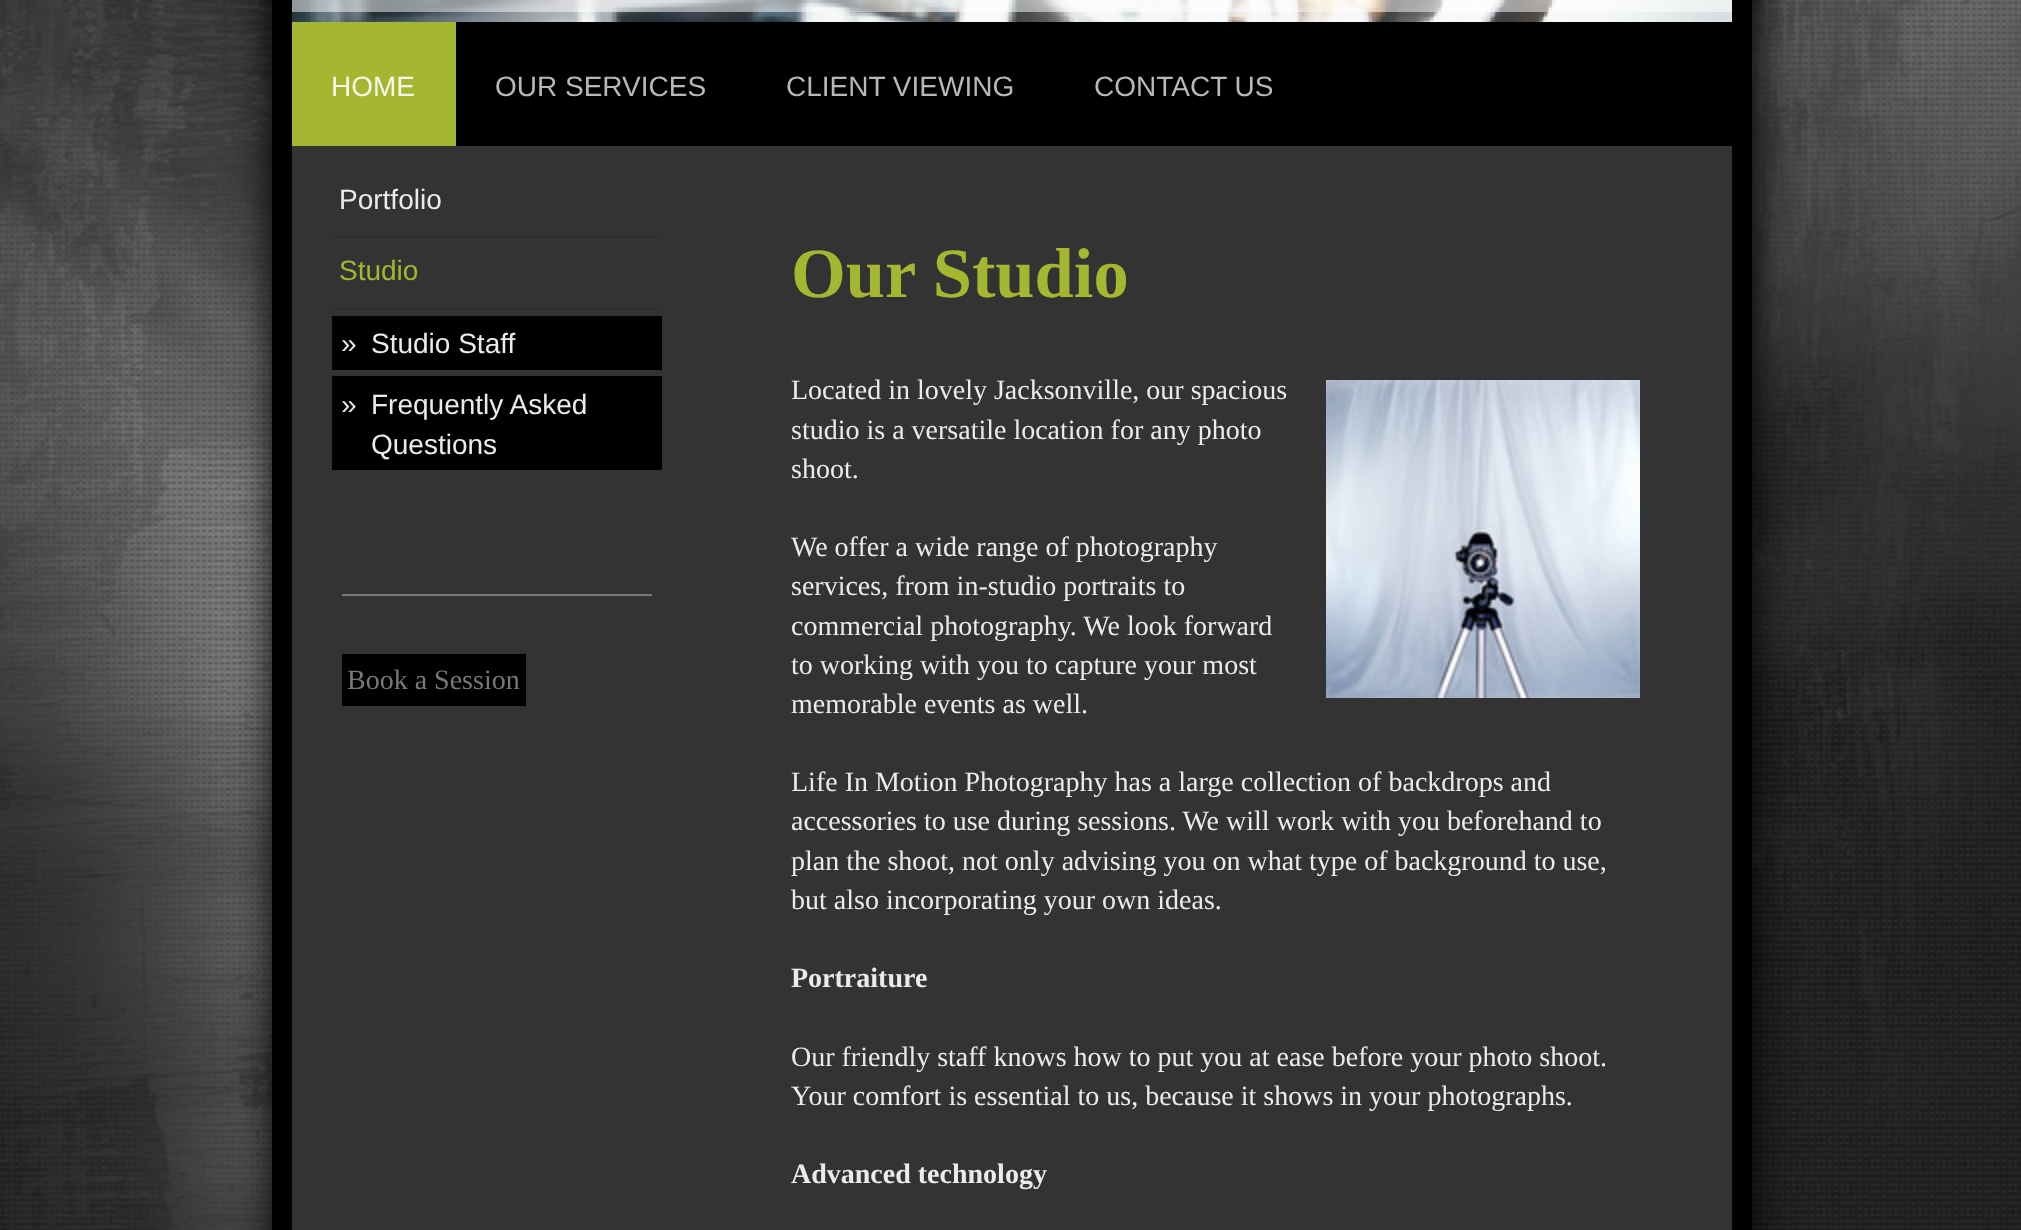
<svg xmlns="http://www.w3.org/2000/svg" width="2021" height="1230">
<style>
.a{font:28px Liberation Sans;fill:#f6f8ea}
.b{font:28px Liberation Sans;fill:#b8b8b8}
.c{font:28px Liberation Sans;fill:#ebebeb}
.d{font:28px Liberation Sans;fill:#a5b730}
.e{font:28px Liberation Serif;fill:#787878}
.f{font:bold 70.5px Liberation Serif;fill:#a5b730}
.g{font:28px Liberation Serif;fill:#ebebeb}
.h{font:bold 28px Liberation Serif;fill:#ebebeb}
</style>
<rect width="100%" height="100%" fill="#fff"/>
<image href="1.png" x="0" y="0" width="2021" height="1230"/>
<path fill="#000" filter="blur(20px)" d="M272 -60h1480v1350H272z"/>
<path fill="#000" d="M272 0h1480v1230H272z"/>
<image href="2.png" x="292" y="0" width="1440" height="22"/>
<path fill="#ffffff80" d="M292 0h1440v12H292z"/>
<path fill="#a5b730" d="M292 22h164v124H292z"/>
<path fill="#333" d="M292 146h1440v1084H292z"/>
<path fill="#2e2e2e" d="M332 236h330v2H332z"/>
<path fill="#2e2e2e" d="M332 308h330v2H332z"/>
<path fill="#000" d="M332 316h330v54H332z"/>
<path fill="#000" d="M332 376h330v94H332z"/>
<path fill="#787878" d="M342 594h310v2H342z"/>
<path fill="#000" d="M342 654h184v52H342z"/>
<image href="3.png" x="1326" y="380" width="314" height="318"/>
<text class="a" x="331" y="96">HOME</text>
<text class="b" x="495" y="96">OUR SERVICES</text>
<text class="b" x="786" y="96">CLIENT VIEWING</text>
<text class="b" x="1094" y="96">CONTACT US</text>
<text class="c" x="339" y="209">Portfolio</text>
<text class="d" x="339" y="280">Studio</text>
<text class="c" x="341" y="353">»</text>
<text class="c" x="371" y="353">Studio Staff</text>
<text class="c" x="341" y="414">»</text>
<text class="c" x="371" y="414">Frequently Asked</text>
<text class="c" x="371" y="454">Questions</text>
<text class="e" x="347" y="689">Book a Session</text>
<text class="f" x="791" y="297">Our Studio</text>
<text class="g" x="791" y="399">Located in lovely Jacksonville, our spacious</text>
<text class="g" x="791" y="439">studio is a versatile location for any photo</text>
<text class="g" x="791" y="478">shoot.</text>
<text class="g" x="791" y="556">We offer a wide range of photography</text>
<text class="g" x="791" y="595">services, from in-studio portraits to</text>
<text class="g" x="791" y="635">commercial photography. We look forward</text>
<text class="g" x="791" y="674">to working with you to capture your most</text>
<text class="g" x="791" y="713">memorable events as well.</text>
<text class="g" x="791" y="791">Life In Motion Photography has a large collection of backdrops and</text>
<text class="g" x="791" y="830">accessories to use during sessions. We will work with you beforehand to</text>
<text class="g" x="791" y="870">plan the shoot, not only advising you on what type of background to use,</text>
<text class="g" x="791" y="909">but also incorporating your own ideas.</text>
<text class="h" x="791" y="987">Portraiture</text>
<text class="g" x="791" y="1066">Our friendly staff knows how to put you at ease before your photo shoot.</text>
<text class="g" x="791" y="1105">Your comfort is essential to us, because it shows in your photographs.</text>
<text class="h" x="791" y="1183">Advanced technology</text>
</svg>
